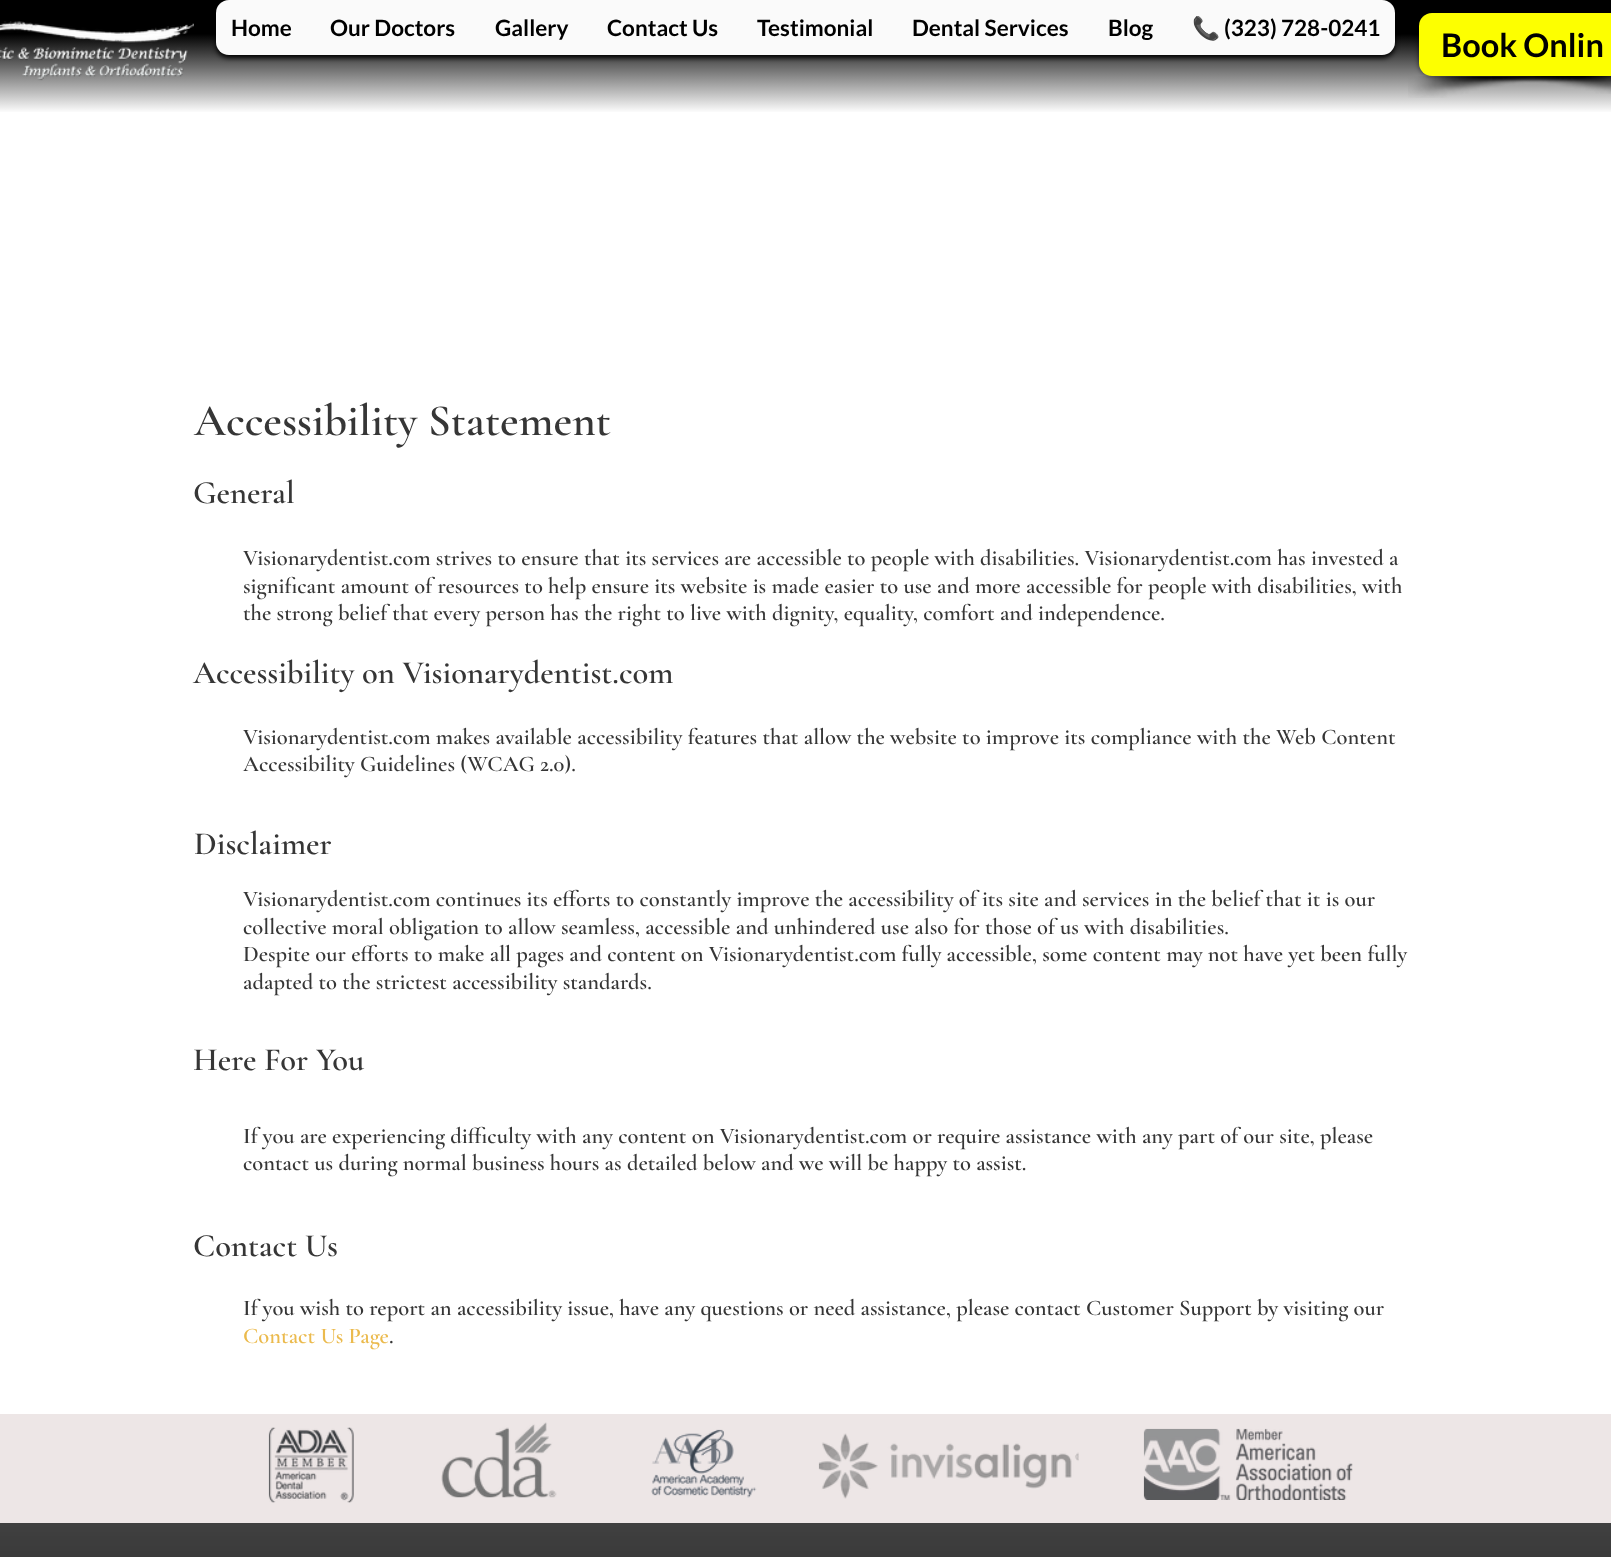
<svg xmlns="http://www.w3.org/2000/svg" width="1611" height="1557">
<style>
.a{font:bold 22.5px Lato;fill:#000}
.b{font:bold 22.5px Noto Color Emoji;fill:#000}
.c{font:bold 32.5px Lato;fill:#000}
.d{font:600 45px Cormorant Garamond;fill:#363636}
.e{font:600 32.5px Cormorant Garamond;fill:#363636}
.f{font:600 22.5px Cormorant Garamond;fill:#363636}
.g{font:600 22.5px Cormorant Garamond;fill:#ebba4d}
</style>
<defs>
<linearGradient id="g1" gradientUnits="userSpaceOnUse" x1="806" y1="0" x2="806" y2="113"><stop offset="0.3" stop-color="#000"/><stop offset="1" stop-color="#fff"/></linearGradient>
</defs>
<rect width="100%" height="100%" fill="#fff"/>
<path fill="url(#g1)" d="M0 0h1611v112H0z"/>
<rect fill="#000" filter="blur(2.5px)" x="216" y="3" width="1179" height="55" rx="13"/>
<rect fill="#fafafa" x="216" width="1179" height="55" rx="13"/>
<image href="1.png" x="0" y="21" width="194" height="60"/>
<image href="2.png" x="1408" y="76" width="179" height="22"/>
<image href="3.png" x="1492" y="76" width="119" height="18"/>
<rect fill="#00000099" filter="blur(2.5px)" x="1419" y="13" width="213" height="63" rx="13"/>
<rect fill="#fdff00" x="1419" y="13" width="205" height="63" rx="13"/>
<path fill="#ede6e6" d="M0 1414h1611v109H0z"/>
<image href="4.png" x="268" y="1427" width="86" height="76"/>
<image href="5.png" x="441" y="1422" width="116" height="76"/>
<image href="6.png" x="651" y="1429" width="106" height="69"/>
<image href="7.png" x="818" y="1433" width="261" height="66"/>
<image href="8.png" x="1143" y="1428" width="210" height="72"/>
<path fill="#1a1a1a" d="M0 1523h1611v34H0z"/>
<image href="9.png" x="0" y="1523" width="1611" height="34"/>
<text class="a" x="231" y="36">Home</text>
<text class="a" x="330" y="36">Our Doctors</text>
<text class="a" x="495" y="36">Gallery</text>
<text class="a" x="607" y="36">Contact Us</text>
<text class="a" x="757" y="36">Testimonial</text>
<text class="a" x="912" y="36">Dental Services</text>
<text class="a" x="1108" y="36">Blog</text>
<text class="b" x="1192" y="36">📞</text>
<text class="a" x="1224" y="36">(323) 728-0241</text>
<text class="c" x="1441" y="57">Book Onlin</text>
<text class="d" x="194" y="435">Accessibility Statement</text>
<text class="e" x="193" y="503">General</text>
<text class="f" x="243" y="565">Visionarydentist.com strives to ensure that its services are accessible to people with disabilities. Visionarydentist.com has invested a</text>
<text class="f" x="243" y="593">significant amount of resources to help ensure its website is made easier to use and more accessible for people with disabilities, with</text>
<text class="f" x="243" y="620">the strong belief that every person has the right to live with dignity, equality, comfort and independence.</text>
<text class="e" x="193" y="683">Accessibility on Visionarydentist.com</text>
<text class="f" x="243" y="744">Visionarydentist.com makes available accessibility features that allow the website to improve its compliance with the Web Content</text>
<text class="f" x="243" y="771">Accessibility Guidelines (WCAG 2.0).</text>
<text class="e" x="194" y="854">Disclaimer</text>
<text class="f" x="243" y="906">Visionarydentist.com continues its efforts to constantly improve the accessibility of its site and services in the belief that it is our</text>
<text class="f" x="243" y="934">collective moral obligation to allow seamless, accessible and unhindered use also for those of us with disabilities.</text>
<text class="f" x="243" y="961">Despite our efforts to make all pages and content on Visionarydentist.com fully accessible, some content may not have yet been fully</text>
<text class="f" x="243" y="989">adapted to the strictest accessibility standards.</text>
<text class="e" x="193" y="1070">Here For You</text>
<text class="f" x="243" y="1143">If you are experiencing difficulty with any content on Visionarydentist.com or require assistance with any part of our site, please</text>
<text class="f" x="243" y="1170">contact us during normal business hours as detailed below and we will be happy to assist.</text>
<text class="e" x="193" y="1256">Contact Us</text>
<text class="f" x="243" y="1315">If you wish to report an accessibility issue, have any questions or need assistance, please contact Customer Support by visiting our</text>
<text class="g" x="243" y="1343">Contact Us Page</text>
<text class="f" x="389" y="1343">.</text>
</svg>
